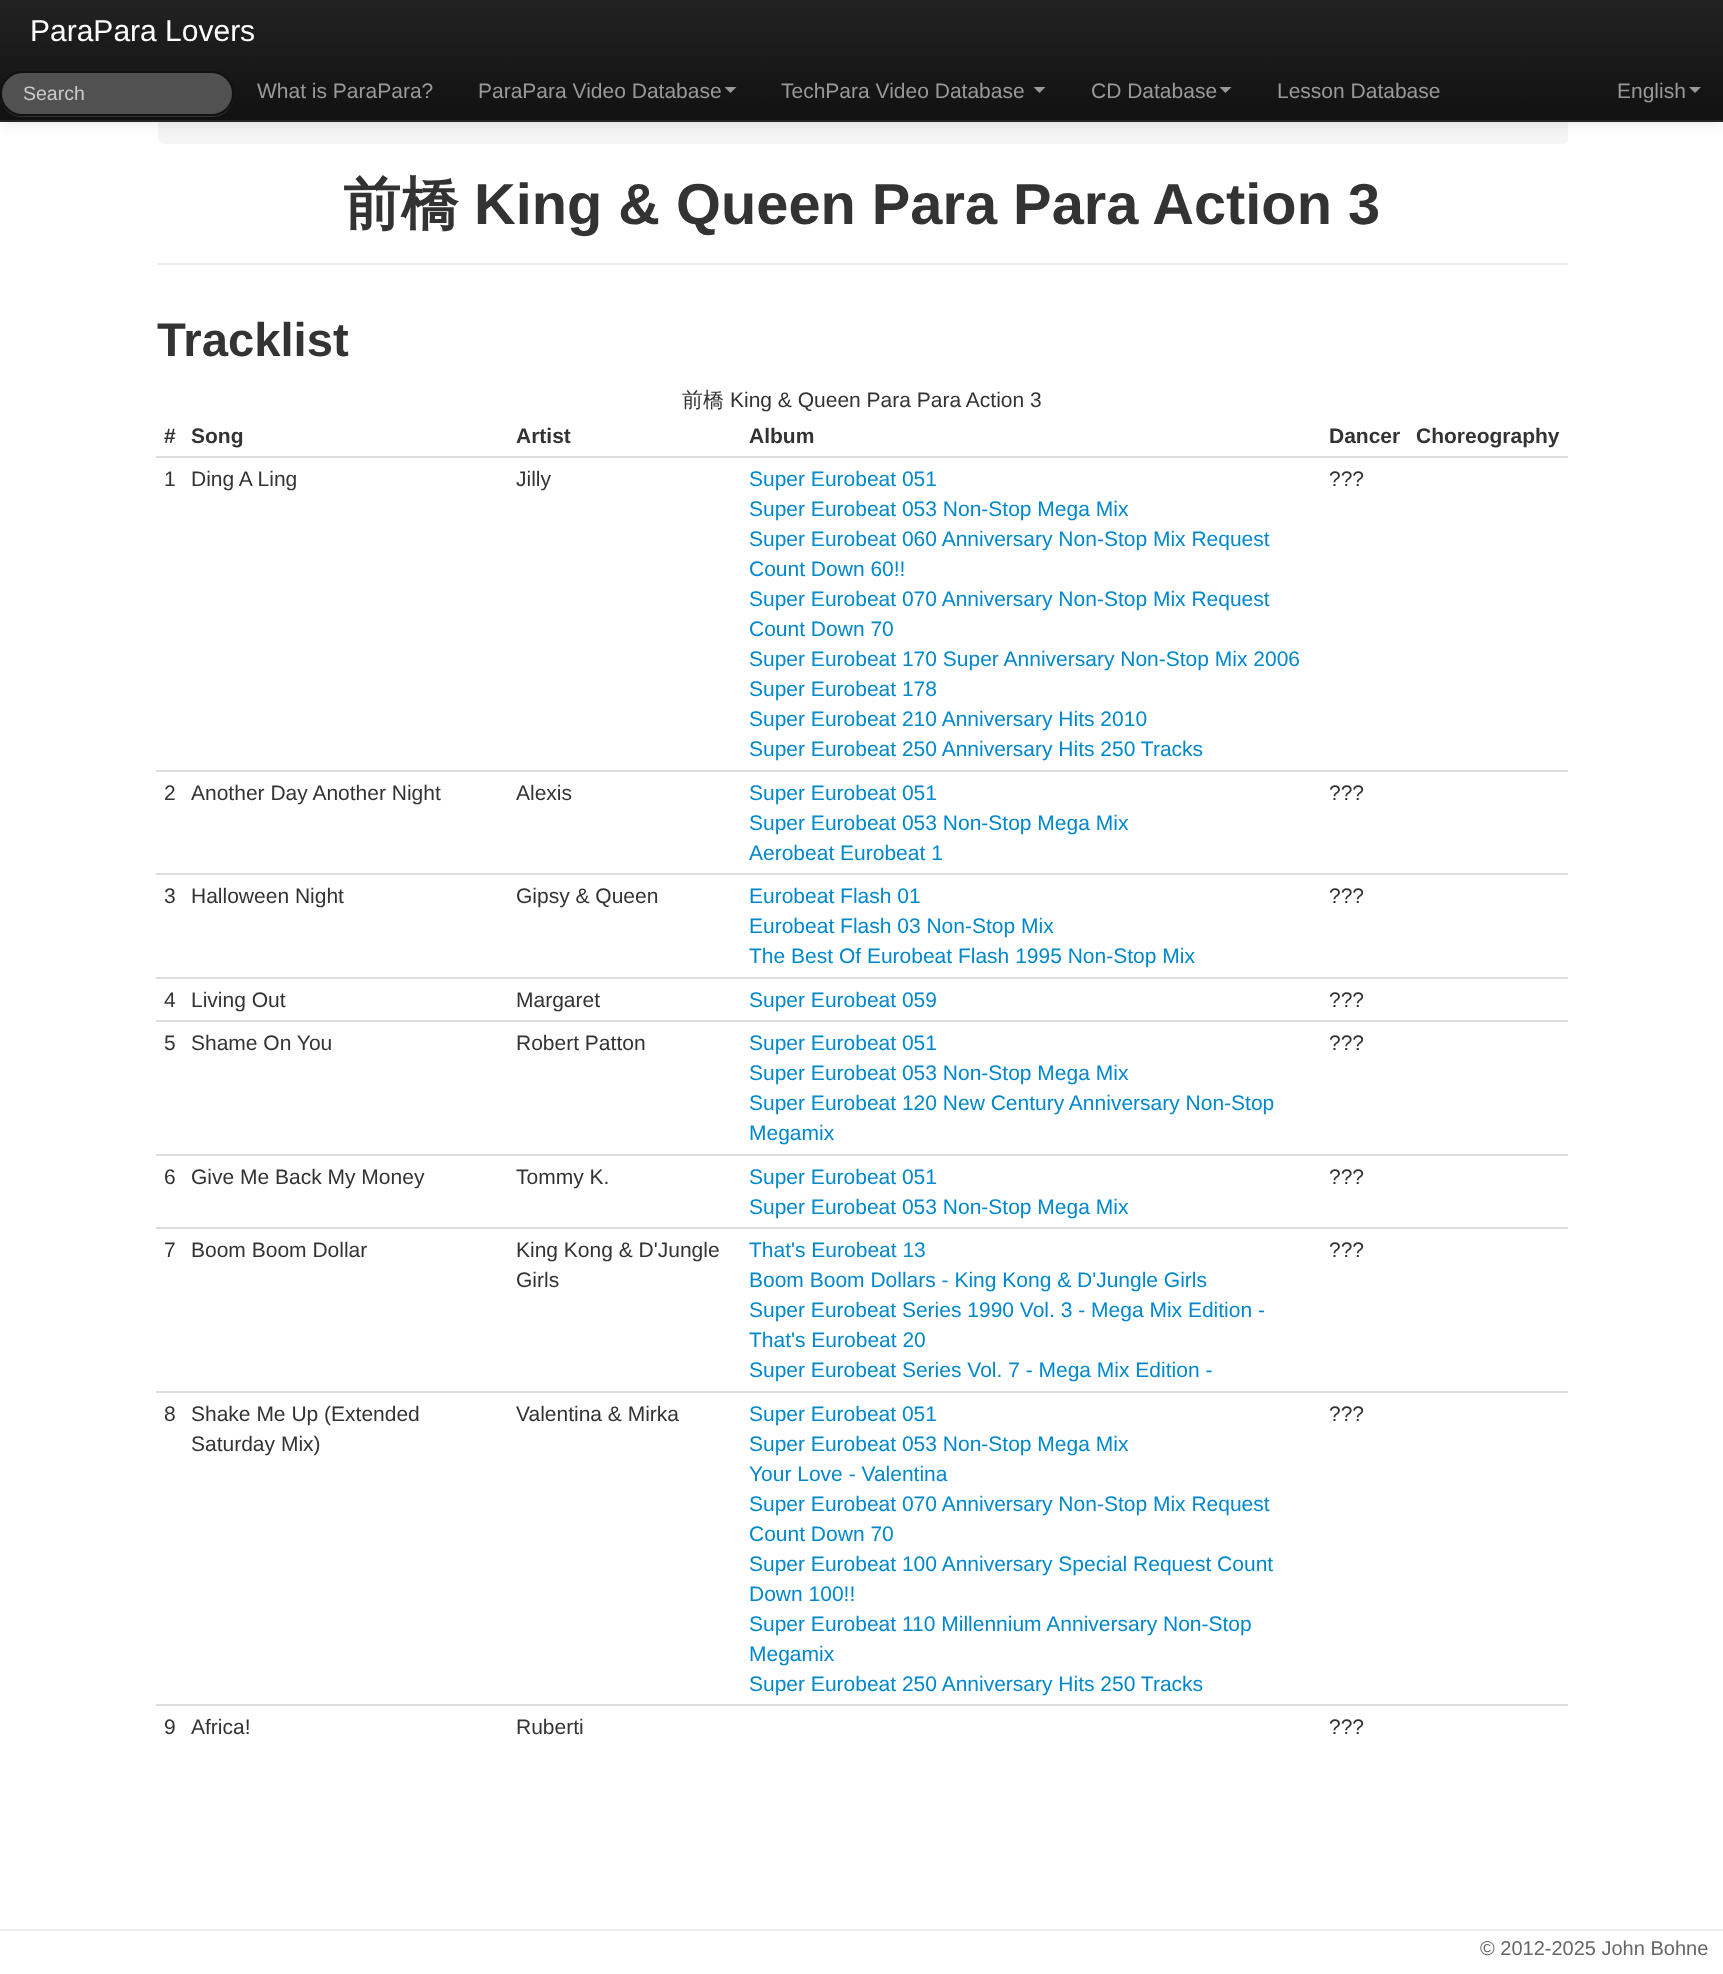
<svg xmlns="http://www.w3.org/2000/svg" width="1723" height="1974">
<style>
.a{font:30px Liberation Sans;fill:#fff}
.b{font:19.5px Liberation Sans;fill:#ccc}
.c{font:21px Liberation Sans;fill:#999}
.d{font:bold 57.75px WenQuanYi Zen Hei;fill:#333}
.e{font:bold 57.75px Liberation Sans;fill:#333}
.f{font:bold 47.25px Liberation Sans;fill:#333}
.g{font:500 21px WenQuanYi Zen Hei;fill:#333}
.h{font:21px Liberation Sans;fill:#333}
.i{font:bold 21px Liberation Sans;fill:#333}
.j{font:21px Liberation Sans;fill:#08c}
.k{font:20px Liberation Sans;fill:#666}
</style>
<defs>
<linearGradient id="g1" gradientUnits="userSpaceOnUse" x1="862" y1="0" x2="862" y2="120"><stop offset="0" stop-color="#222"/><stop offset="1" stop-color="#111"/></linearGradient>
</defs>
<rect width="100%" height="100%" fill="#fff"/>
<rect fill="#f5f5f5" x="158" y="90" width="1410" height="54" rx="6"/>
<path fill="#0000001a" filter="blur(7.5px)" d="M0 2h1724v121H0z"/>
<path fill="url(#g1)" d="M0 0h1723v120H0z"/>
<path fill="#252525" d="M0 120h1723v2H0z"/>
<path fill="#353535" d="M0 94c0 13 10 23 22 23h190c12 0 22-10 22-23c0 12-10 22-22 22h-190c-12 0-22-10-22-22z"/>
<rect fill="#515151" stroke="#111" stroke-width="2" x="1" y="72" width="232" height="43" rx="21.5"/>
<path fill="#999" d="M724.5 87h12l-6 6z"/>
<path fill="#999" d="M1033.5 87h12l-6 6z"/>
<path fill="#999" d="M1219.5 87h12l-6 6z"/>
<path fill="#999" d="M1689 87h12l-6 6z"/>
<path fill="#eee" d="M158 263h1410v2H158z"/>
<path fill="#ddd" d="M156 456h1412v2H156z"/>
<path fill="#ddd" d="M156 770h1412v2H156z"/>
<path fill="#ddd" d="M156 873h1412v2H156z"/>
<path fill="#ddd" d="M156 977h1412v2H156z"/>
<path fill="#ddd" d="M156 1020h1412v2H156z"/>
<path fill="#ddd" d="M156 1154h1412v2H156z"/>
<path fill="#ddd" d="M156 1227h1412v2H156z"/>
<path fill="#ddd" d="M156 1391h1412v2H156z"/>
<path fill="#ddd" d="M156 1704h1412v2H156z"/>
<path fill="#eee" d="M0 1929h1723v2H0z"/>
<text class="a" x="30" y="41">ParaPara Lovers</text>
<text class="b" x="23" y="100">Search</text>
<text class="c" x="257" y="98">What is ParaPara?</text>
<text class="c" x="478" y="98">ParaPara Video Database</text>
<text class="c" x="781" y="98">TechPara Video Database</text>
<text class="c" x="1091" y="98">CD Database</text>
<text class="c" x="1277" y="98">Lesson Database</text>
<text class="c" x="1617" y="98">English</text>
<text class="d" x="343" y="224">前橋</text>
<text class="e" x="474" y="224">King &amp; Queen Para Para Action 3</text>
<text class="f" x="157" y="356">Tracklist</text>
<text class="g" x="682" y="407">前橋</text>
<text class="h" x="730" y="407">King &amp; Queen Para Para Action 3</text>
<text class="i" x="164" y="443">#</text>
<text class="i" x="191" y="443">Song</text>
<text class="i" x="516" y="443">Artist</text>
<text class="i" x="749" y="443">Album</text>
<text class="i" x="1329" y="443">Dancer</text>
<text class="i" x="1416" y="443">Choreography</text>
<text class="h" x="164" y="486">1</text>
<text class="h" x="191" y="486">Ding A Ling</text>
<text class="h" x="516" y="486">Jilly</text>
<text class="j" x="749" y="486">Super Eurobeat 051</text>
<text class="j" x="749" y="516">Super Eurobeat 053 Non-Stop Mega Mix</text>
<text class="j" x="749" y="546">Super Eurobeat 060 Anniversary Non-Stop Mix Request</text>
<text class="j" x="749" y="576">Count Down 60!!</text>
<text class="j" x="749" y="606">Super Eurobeat 070 Anniversary Non-Stop Mix Request</text>
<text class="j" x="749" y="636">Count Down 70</text>
<text class="j" x="749" y="666">Super Eurobeat 170 Super Anniversary Non-Stop Mix 2006</text>
<text class="j" x="749" y="696">Super Eurobeat 178</text>
<text class="j" x="749" y="726">Super Eurobeat 210 Anniversary Hits 2010</text>
<text class="j" x="749" y="756">Super Eurobeat 250 Anniversary Hits 250 Tracks</text>
<text class="h" x="1329" y="486">???</text>
<text class="h" x="164" y="800">2</text>
<text class="h" x="191" y="800">Another Day Another Night</text>
<text class="h" x="516" y="800">Alexis</text>
<text class="j" x="749" y="800">Super Eurobeat 051</text>
<text class="j" x="749" y="830">Super Eurobeat 053 Non-Stop Mega Mix</text>
<text class="j" x="749" y="860">Aerobeat Eurobeat 1</text>
<text class="h" x="1329" y="800">???</text>
<text class="h" x="164" y="903">3</text>
<text class="h" x="191" y="903">Halloween Night</text>
<text class="h" x="516" y="903">Gipsy &amp; Queen</text>
<text class="j" x="749" y="903">Eurobeat Flash 01</text>
<text class="j" x="749" y="933">Eurobeat Flash 03 Non-Stop Mix</text>
<text class="j" x="749" y="963">The Best Of Eurobeat Flash 1995 Non-Stop Mix</text>
<text class="h" x="1329" y="903">???</text>
<text class="h" x="164" y="1007">4</text>
<text class="h" x="191" y="1007">Living Out</text>
<text class="h" x="516" y="1007">Margaret</text>
<text class="j" x="749" y="1007">Super Eurobeat 059</text>
<text class="h" x="1329" y="1007">???</text>
<text class="h" x="164" y="1050">5</text>
<text class="h" x="191" y="1050">Shame On You</text>
<text class="h" x="516" y="1050">Robert Patton</text>
<text class="j" x="749" y="1050">Super Eurobeat 051</text>
<text class="j" x="749" y="1080">Super Eurobeat 053 Non-Stop Mega Mix</text>
<text class="j" x="749" y="1110">Super Eurobeat 120 New Century Anniversary Non-Stop</text>
<text class="j" x="749" y="1140">Megamix</text>
<text class="h" x="1329" y="1050">???</text>
<text class="h" x="164" y="1184">6</text>
<text class="h" x="191" y="1184">Give Me Back My Money</text>
<text class="h" x="516" y="1184">Tommy K.</text>
<text class="j" x="749" y="1184">Super Eurobeat 051</text>
<text class="j" x="749" y="1214">Super Eurobeat 053 Non-Stop Mega Mix</text>
<text class="h" x="1329" y="1184">???</text>
<text class="h" x="164" y="1257">7</text>
<text class="h" x="191" y="1257">Boom Boom Dollar</text>
<text class="h" x="516" y="1257">King Kong &amp; D'Jungle</text>
<text class="h" x="516" y="1287">Girls</text>
<text class="j" x="749" y="1257">That's Eurobeat 13</text>
<text class="j" x="749" y="1287">Boom Boom Dollars - King Kong &amp; D'Jungle Girls</text>
<text class="j" x="749" y="1317">Super Eurobeat Series 1990 Vol. 3 - Mega Mix Edition -</text>
<text class="j" x="749" y="1347">That's Eurobeat 20</text>
<text class="j" x="749" y="1377">Super Eurobeat Series Vol. 7 - Mega Mix Edition -</text>
<text class="h" x="1329" y="1257">???</text>
<text class="h" x="164" y="1421">8</text>
<text class="h" x="191" y="1421">Shake Me Up (Extended</text>
<text class="h" x="191" y="1451">Saturday Mix)</text>
<text class="h" x="516" y="1421">Valentina &amp; Mirka</text>
<text class="j" x="749" y="1421">Super Eurobeat 051</text>
<text class="j" x="749" y="1451">Super Eurobeat 053 Non-Stop Mega Mix</text>
<text class="j" x="749" y="1481">Your Love - Valentina</text>
<text class="j" x="749" y="1511">Super Eurobeat 070 Anniversary Non-Stop Mix Request</text>
<text class="j" x="749" y="1541">Count Down 70</text>
<text class="j" x="749" y="1571">Super Eurobeat 100 Anniversary Special Request Count</text>
<text class="j" x="749" y="1601">Down 100!!</text>
<text class="j" x="749" y="1631">Super Eurobeat 110 Millennium Anniversary Non-Stop</text>
<text class="j" x="749" y="1661">Megamix</text>
<text class="j" x="749" y="1691">Super Eurobeat 250 Anniversary Hits 250 Tracks</text>
<text class="h" x="1329" y="1421">???</text>
<text class="h" x="164" y="1734">9</text>
<text class="h" x="191" y="1734">Africa!</text>
<text class="h" x="516" y="1734">Ruberti</text>
<text class="h" x="1329" y="1734">???</text>
<text class="k" x="1480" y="1955">© 2012-2025 John Bohne</text>
</svg>
